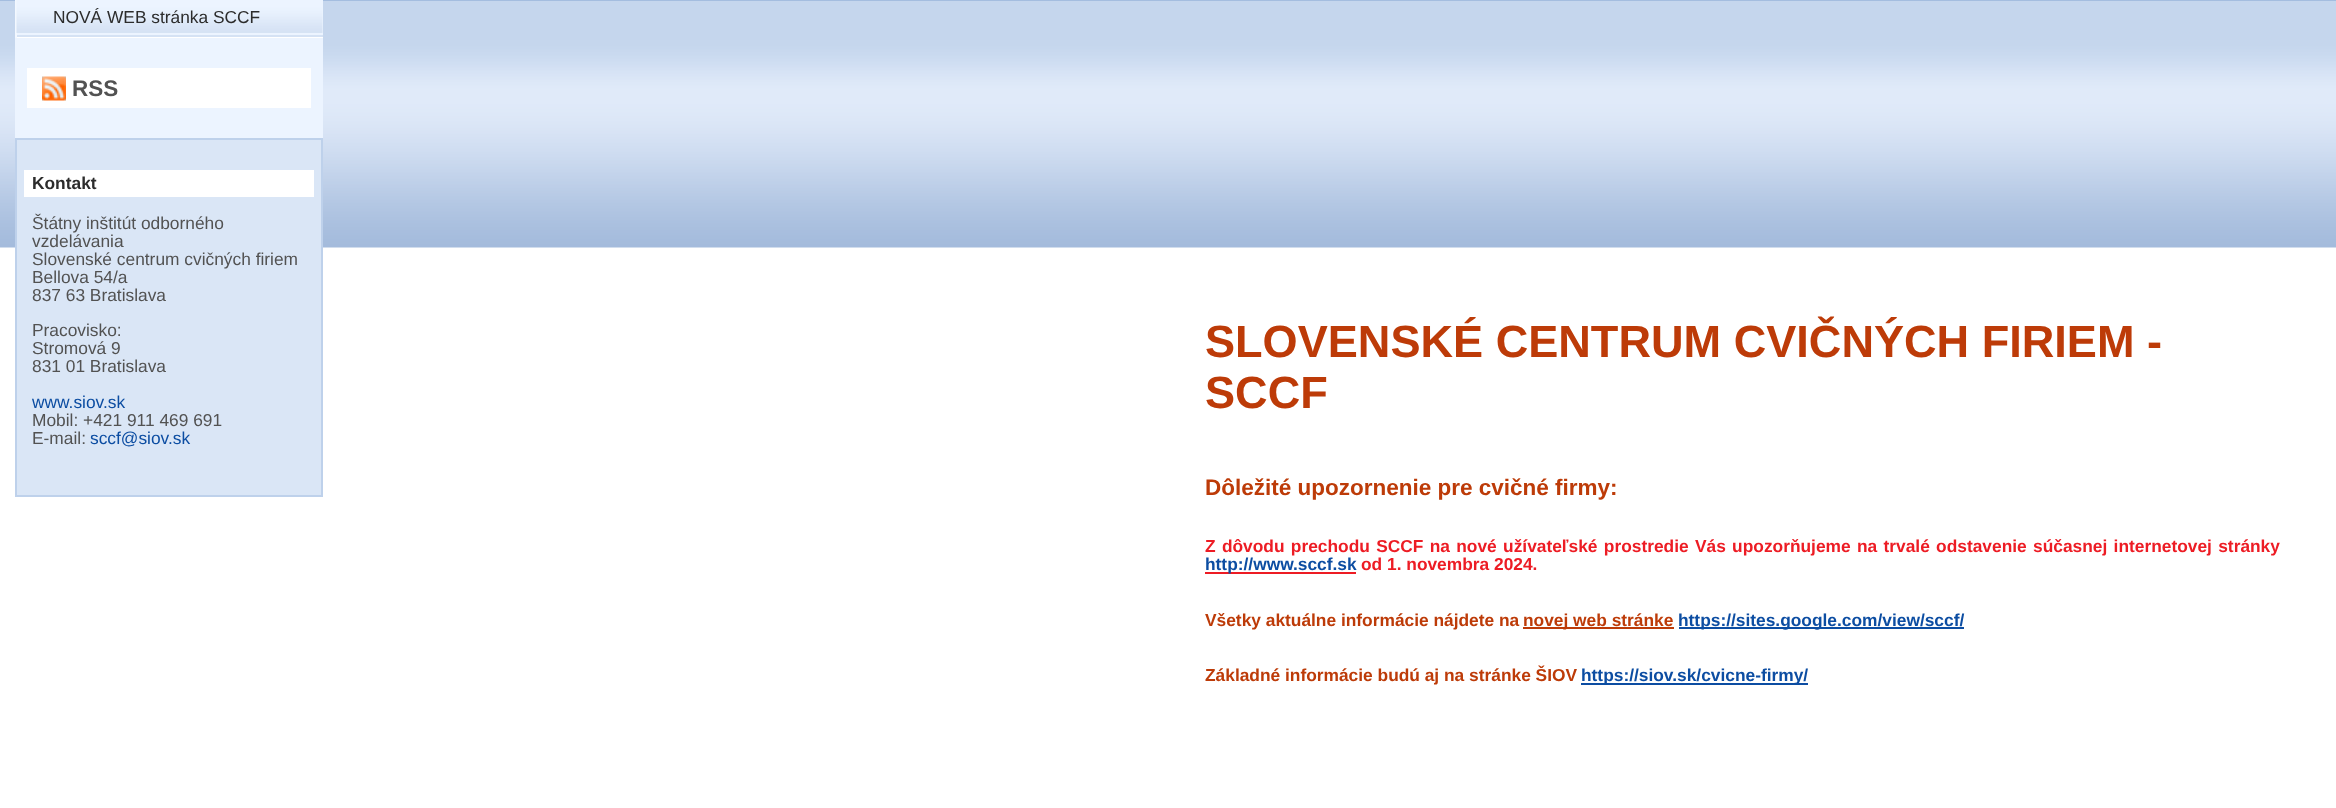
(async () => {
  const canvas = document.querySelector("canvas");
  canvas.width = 2336;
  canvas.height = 808;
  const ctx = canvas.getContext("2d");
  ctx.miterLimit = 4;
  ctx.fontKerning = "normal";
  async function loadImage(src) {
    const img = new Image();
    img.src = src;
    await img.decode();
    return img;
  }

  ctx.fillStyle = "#ffffff";
  ctx.fillRect(0, 0, 2336, 808);
  ctx.drawImage(await loadImage("img/1.png"), 0, 0, 2336, 248);
  for (const [x, y, w, h, color] of [
    [15, 38, 308, 100, "#ecf4ff"],
    [15, 0, 2, 38, "#f3f8ff"],
    [17, 37, 306, 1, "#ffffff"],
    [17, 35, 306, 2, "#d5e2f4"],
    [17, 0, 306, 35, "#ecf4ff"],
  ]) {
    ctx.fillStyle = color;
    ctx.fillRect(x, y, w, h);
  }
  ctx.drawImage(await loadImage("img/2.png"), 16, 0, 307, 33);
  ctx.fillStyle = "#ffffff";
  ctx.fillRect(27, 68, 284, 40);
  ctx.drawImage(await loadImage("img/3.png"), 42, 76, 24, 25);
  ctx.fillStyle = "#dae6f6";
  ctx.beginPath();
  ctx.rect(16, 139, 306, 357);
  ctx.fill();
  ctx.strokeStyle = "#bed1eb";
  ctx.lineWidth = 2;
  ctx.stroke();
  for (const [x, y, w, h, color] of [
    [24, 170, 290, 27, "#ffffff"],
    [1205, 572, 151, 2, "#ed1c24"],
    [1523, 627, 151, 2, "#bd3b08"],
    [1679, 627, 285, 2, "#0c4da2"],
    [1581, 683, 227, 2, "#0c4da2"],
  ]) {
    ctx.fillStyle = color;
    ctx.fillRect(x, y, w, h);
  }
  ctx.font = "17.35px Liberation Sans";
  ctx.fillStyle = "#2c2c2c";
  ctx.fillText("NOVÁ WEB stránka SCCF", 53, 23);
  ctx.font = "bold 22.5px Liberation Sans";
  ctx.fillStyle = "#525252";
  ctx.fillText("RSS", 72, 96);
  ctx.font = "bold 17.35px Liberation Sans";
  ctx.fillStyle = "#2c2c2c";
  ctx.fillText("Kontakt", 32, 189);
  ctx.font = "17.35px Liberation Sans";
  ctx.fillStyle = "#525252";
  for (const [text, x, y] of [
    ["Štátny inštitút odborného", 32, 229],
    ["vzdelávania", 32, 247],
    ["Slovenské centrum cvičných firiem", 32, 265],
    ["Bellova 54/a", 32, 283],
    ["837 63 Bratislava", 32, 301],
    ["Pracovisko:", 32, 336],
    ["Stromová 9", 32, 354],
    ["831 01 Bratislava", 32, 372],
  ]) {
    ctx.fillText(text, x, y);
  }
  ctx.fillStyle = "#0c4da2";
  ctx.fillText("www.siov.sk", 32, 408);
  ctx.fillStyle = "#525252";
  ctx.fillText("Mobil: +421 911 469 691", 32, 426);
  ctx.fillText("E-mail:", 32, 444);
  ctx.fillStyle = "#0c4da2";
  ctx.fillText("sccf@siov.sk", 90, 444);
  ctx.font = "bold 45.1px Liberation Sans";
  ctx.fillStyle = "#bd3b08";
  ctx.fillText("SLOVENSKÉ CENTRUM CVIČNÝCH FIRIEM -", 1205, 357);
  ctx.fillText("SCCF", 1205, 408);
  ctx.font = "bold 22.5px Liberation Sans";
  ctx.fillText("Dôležité upozornenie pre cvičné firmy:", 1205, 495);
  ctx.wordSpacing = "1.5px";
  ctx.font = "bold 17.35px Liberation Sans";
  ctx.fillStyle = "#ed1c24";
  ctx.fillText("Z dôvodu prechodu SCCF na nové užívateľské prostredie Vás upozorňujeme na trvalé odstavenie súčasnej internetovej stránky", 1205, 552);
  ctx.wordSpacing = "0px";
  ctx.fillStyle = "#0c4da2";
  ctx.fillText("http://www.sccf.sk", 1205, 570);
  ctx.fillStyle = "#ed1c24";
  ctx.fillText("od 1. novembra 2024.", 1361, 570);
  ctx.fillStyle = "#bd3b08";
  ctx.fillText("Všetky aktuálne informácie nájdete na", 1205, 626);
  ctx.fillText("novej web stránke", 1523, 626);
  ctx.fillStyle = "#0c4da2";
  ctx.fillText("https://sites.google.com/view/sccf/", 1678, 626);
  ctx.fillStyle = "#bd3b08";
  ctx.fillText("Základné informácie budú aj na stránke ŠIOV", 1205, 681);
  ctx.fillStyle = "#0c4da2";
  ctx.fillText("https://siov.sk/cvicne-firmy/", 1581, 681);
})();
